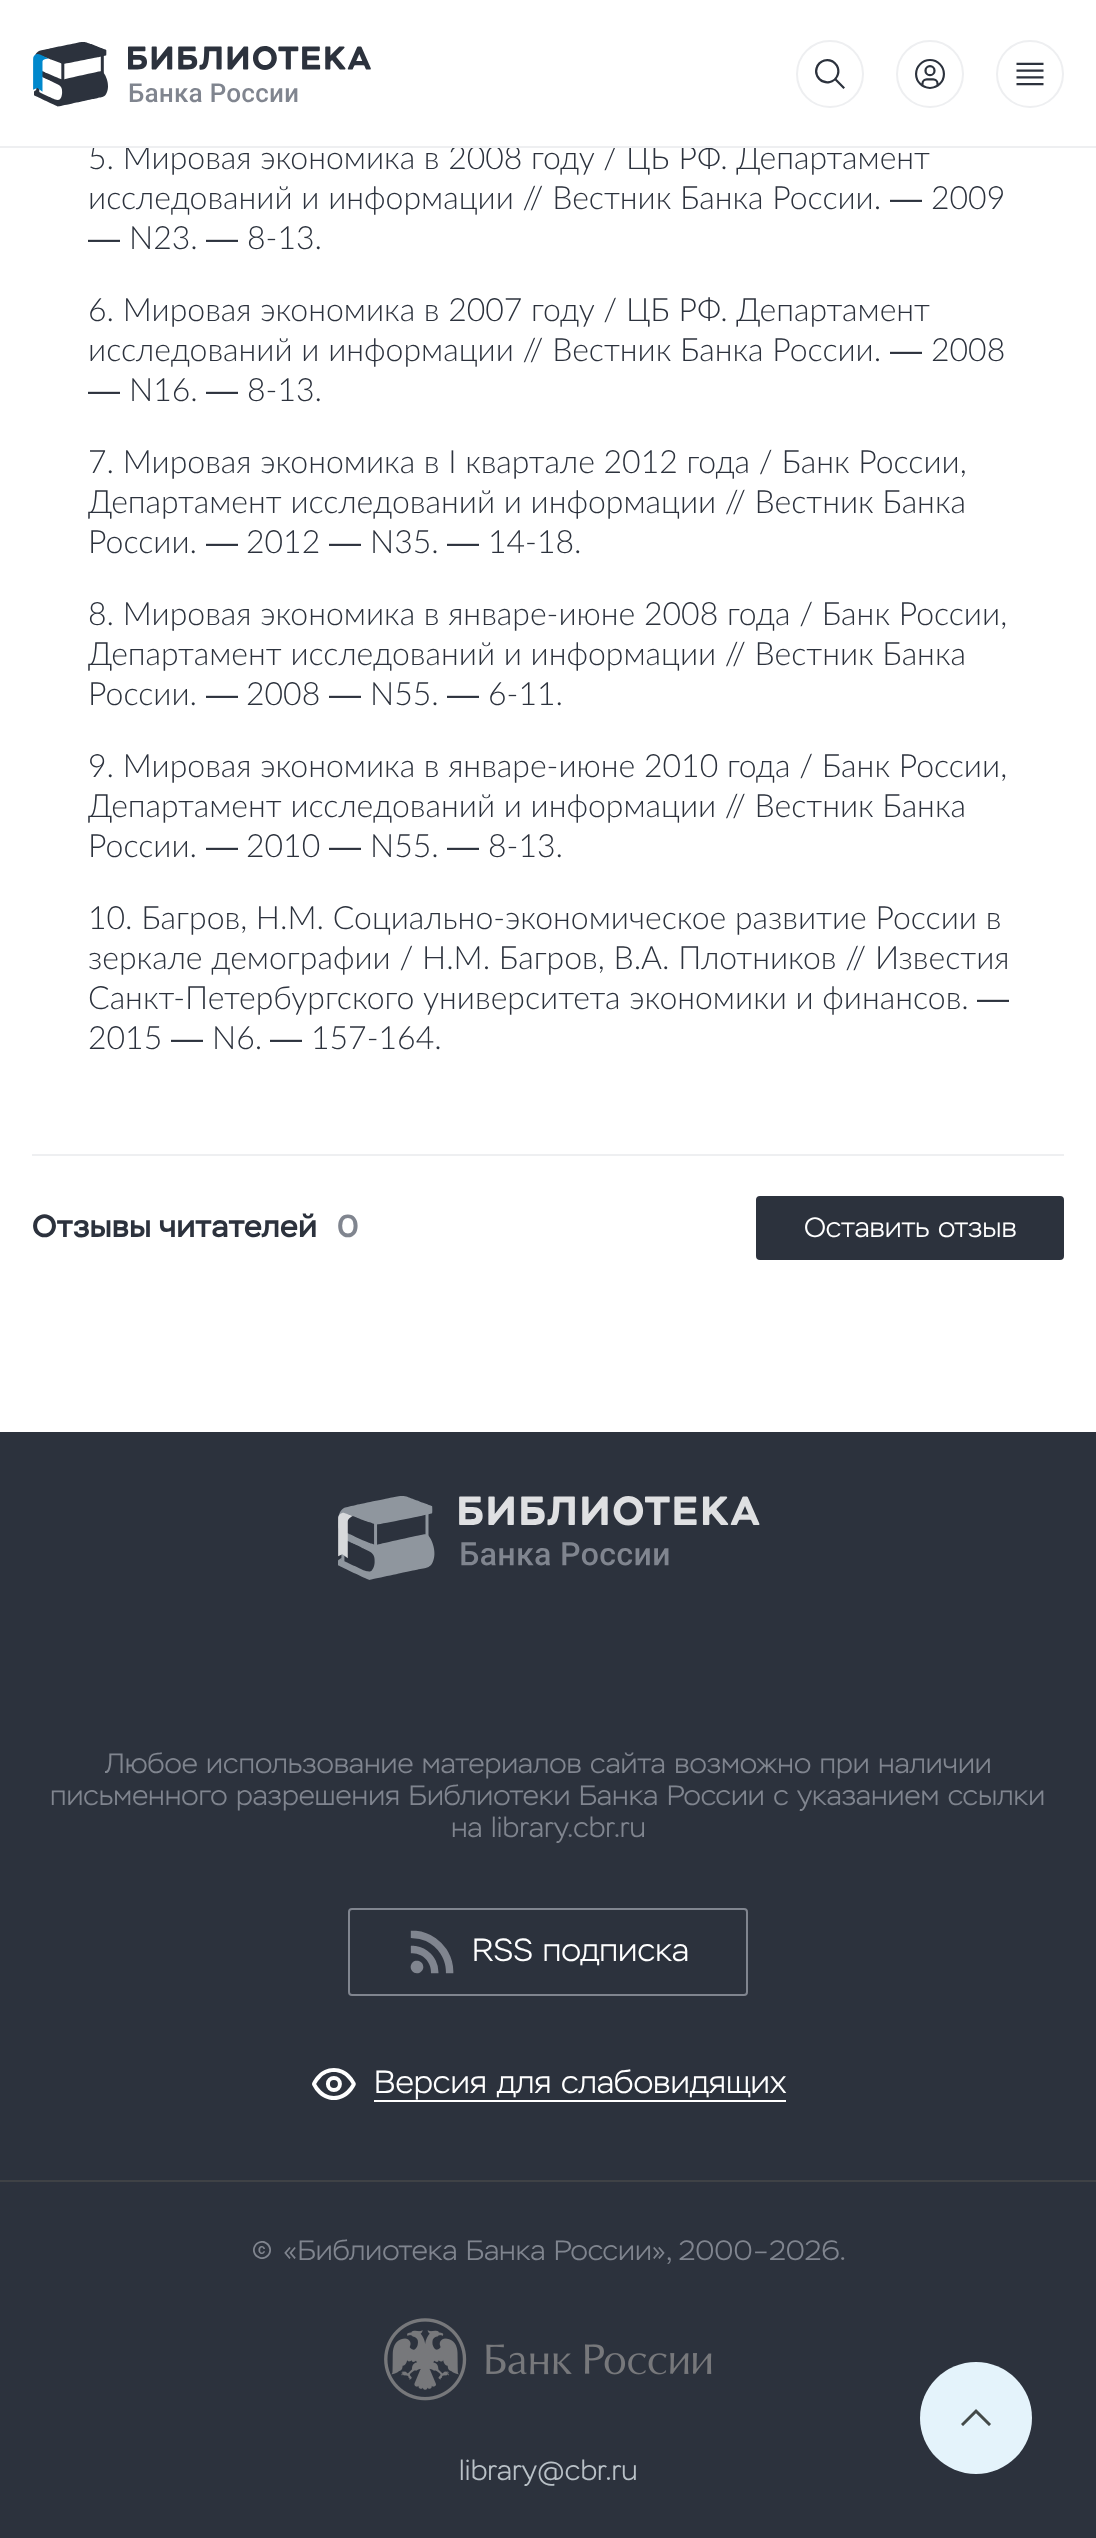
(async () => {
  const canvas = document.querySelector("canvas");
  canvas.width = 1096;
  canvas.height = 2538;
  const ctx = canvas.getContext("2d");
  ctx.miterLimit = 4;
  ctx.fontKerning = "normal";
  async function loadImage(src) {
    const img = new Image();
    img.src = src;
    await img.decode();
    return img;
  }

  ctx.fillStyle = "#ffffff";
  ctx.fillRect(0, 0, 1096, 2538);
  ctx.drawImage(await loadImage("img/1.png"), 33, 42, 338, 65);
  ctx.beginPath();
  ctx.arc(830, 74, 33, 0, Math.PI * 2);
  ctx.strokeStyle = "#eeeff1";
  ctx.lineWidth = 2;
  ctx.stroke();
  ctx.drawImage(await loadImage("img/2.png"), 815, 59, 30, 30);
  ctx.beginPath();
  ctx.arc(930, 74, 33, 0, Math.PI * 2);
  ctx.stroke();
  ctx.drawImage(await loadImage("img/3.png"), 915, 59, 30, 30);
  ctx.beginPath();
  ctx.arc(1030, 74, 33, 0, Math.PI * 2);
  ctx.stroke();
  ctx.drawImage(await loadImage("img/4.png"), 1016, 62, 28, 24);
  ctx.fillStyle = "#eeeff1";
  ctx.fillRect(32, 1154, 1032, 2);
  ctx.fillStyle = "#2c323d";
  ctx.beginPath();
  ctx.roundRect(757, 1197, 306, 62, 3);
  ctx.fill();
  ctx.strokeStyle = "#2c323d";
  ctx.stroke();
  ctx.fillRect(0, 1432, 1096, 1106);
  ctx.fillStyle = "#e4f3fb";
  ctx.beginPath();
  ctx.arc(976, 2418, 56, 0, Math.PI * 2);
  ctx.fill();
  ctx.drawImage(await loadImage("img/5.png"), 961, 2409, 30, 17);
  ctx.drawImage(await loadImage("img/6.png"), 338, 1496, 422, 84);
  ctx.beginPath();
  ctx.roundRect(349, 1909, 398, 86, 3);
  ctx.strokeStyle = "#80858f";
  ctx.stroke();
  ctx.drawImage(await loadImage("img/7.png"), 410, 1930, 44, 44);
  ctx.drawImage(await loadImage("img/8.png"), 312, 2068, 44, 32);
  ctx.fillStyle = "#ffffff";
  ctx.fillRect(374, 2100, 412, 2);
  ctx.fillStyle = "#3f4246";
  ctx.fillRect(0, 2180, 1096, 2);
  ctx.drawImage(await loadImage("img/9.png"), 253, 2241, 18, 18);
  ctx.drawImage(await loadImage("img/10.png"), 384, 2318, 328, 83);
  ctx.font = "300 32px Lato";
  ctx.fillStyle = "#2c323d";
  ctx.fillText("5. Мировая экономика в 2008 году / ЦБ РФ. Департамент", 88, 169);
  ctx.fillStyle = "#eeeff1";
  ctx.fillRect(0, 146, 1096, 2);
  ctx.fillStyle = "#ffffff";
  ctx.fillRect(614, 145, 96, 1);
  ctx.fillStyle = "#2c323d";
  ctx.fillText("исследований и информации // Вестник Банка России.", 88, 209);
  ctx.font = "32px Liberation Sans";
  ctx.fillText("—", 890, 209);
  ctx.font = "300 32px Lato";
  ctx.fillText("2009", 931, 209);
  ctx.font = "32px Liberation Sans";
  ctx.fillText("—", 88, 249);
  ctx.font = "300 32px Lato";
  ctx.fillText("N23.", 129, 249);
  ctx.font = "32px Liberation Sans";
  ctx.fillText("—", 206, 249);
  ctx.font = "300 32px Lato";
  for (const [text, x, y] of [
    ["8-13.", 247, 249],
    ["6. Мировая экономика в 2007 году / ЦБ РФ. Департамент", 88, 321],
    ["исследований и информации // Вестник Банка России.", 88, 361],
  ]) {
    ctx.fillText(text, x, y);
  }
  ctx.font = "32px Liberation Sans";
  ctx.fillText("—", 890, 361);
  ctx.font = "300 32px Lato";
  ctx.fillText("2008", 931, 361);
  ctx.font = "32px Liberation Sans";
  ctx.fillText("—", 88, 401);
  ctx.font = "300 32px Lato";
  ctx.fillText("N16.", 129, 401);
  ctx.font = "32px Liberation Sans";
  ctx.fillText("—", 206, 401);
  ctx.font = "300 32px Lato";
  for (const [text, x, y] of [
    ["8-13.", 247, 401],
    ["7. Мировая экономика в I квартале 2012 года / Банк России,", 88, 473],
    ["Департамент исследований и информации // Вестник Банка", 88, 513],
    ["России.", 88, 553],
  ]) {
    ctx.fillText(text, x, y);
  }
  ctx.font = "32px Liberation Sans";
  ctx.fillText("—", 206, 553);
  ctx.font = "300 32px Lato";
  ctx.fillText("2012", 246, 553);
  ctx.font = "32px Liberation Sans";
  ctx.fillText("—", 329, 553);
  ctx.font = "300 32px Lato";
  ctx.fillText("N35.", 370, 553);
  ctx.font = "32px Liberation Sans";
  ctx.fillText("—", 447, 553);
  ctx.font = "300 32px Lato";
  for (const [text, x, y] of [
    ["14-18.", 488, 553],
    ["8. Мировая экономика в январе-июне 2008 года / Банк России,", 88, 625],
    ["Департамент исследований и информации // Вестник Банка", 88, 665],
    ["России.", 88, 705],
  ]) {
    ctx.fillText(text, x, y);
  }
  ctx.font = "32px Liberation Sans";
  ctx.fillText("—", 206, 705);
  ctx.font = "300 32px Lato";
  ctx.fillText("2008", 246, 705);
  ctx.font = "32px Liberation Sans";
  ctx.fillText("—", 329, 705);
  ctx.font = "300 32px Lato";
  ctx.fillText("N55.", 370, 705);
  ctx.font = "32px Liberation Sans";
  ctx.fillText("—", 447, 705);
  ctx.font = "300 32px Lato";
  for (const [text, x, y] of [
    ["6-11.", 488, 705],
    ["9. Мировая экономика в январе-июне 2010 года / Банк России,", 88, 777],
    ["Департамент исследований и информации // Вестник Банка", 88, 817],
    ["России.", 88, 857],
  ]) {
    ctx.fillText(text, x, y);
  }
  ctx.font = "32px Liberation Sans";
  ctx.fillText("—", 206, 857);
  ctx.font = "300 32px Lato";
  ctx.fillText("2010", 246, 857);
  ctx.font = "32px Liberation Sans";
  ctx.fillText("—", 329, 857);
  ctx.font = "300 32px Lato";
  ctx.fillText("N55.", 370, 857);
  ctx.font = "32px Liberation Sans";
  ctx.fillText("—", 447, 857);
  ctx.font = "300 32px Lato";
  for (const [text, x, y] of [
    ["8-13.", 488, 857],
    ["10. Багров, Н.М. Социально-экономическое развитие России в", 88, 929],
    ["зеркале демографии / Н.М. Багров, В.А. Плотников // Известия", 88, 969],
    ["Санкт-Петербургского университета экономики и финансов.", 88, 1009],
  ]) {
    ctx.fillText(text, x, y);
  }
  ctx.font = "32px Liberation Sans";
  ctx.fillText("—", 977, 1009);
  ctx.font = "300 32px Lato";
  ctx.fillText("2015", 88, 1049);
  ctx.font = "32px Liberation Sans";
  ctx.fillText("—", 171, 1049);
  ctx.font = "300 32px Lato";
  ctx.fillText("N6.", 212, 1049);
  ctx.font = "32px Liberation Sans";
  ctx.fillText("—", 270, 1049);
  ctx.font = "300 32px Lato";
  ctx.fillText("157-164.", 311, 1049);
  ctx.font = "500 32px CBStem";
  ctx.fillText("Отзывы читателей", 32, 1237);
  ctx.fillStyle = "#80858f";
  ctx.fillText("0", 337, 1237);
  ctx.font = "300 28px CBStem";
  ctx.fillStyle = "#ffffff";
  ctx.fillText("Оставить отзыв", 804, 1237);
  ctx.fillStyle = "#80858f";
  for (const [text, x, y] of [
    ["Любое использование материалов сайта возможно при наличии", 105, 1773],
    ["письменного разрешения Библиотеки Банка России с указанием ссылки", 50, 1805],
    ["на library.cbr.ru", 451, 1837],
  ]) {
    ctx.fillText(text, x, y);
  }
  ctx.font = "300 32px CBStem";
  ctx.fillStyle = "#ffffff";
  ctx.fillText("RSS подписка", 472, 1961);
  ctx.fillText("Версия для слабовидящих", 374, 2093);
  ctx.font = "300 28px CBStem";
  ctx.fillStyle = "#80858f";
  ctx.fillText("«Библиотека Банка России», 2000–2026.", 283, 2260);
  ctx.fillStyle = "#b9c1c7";
  ctx.fillText("library@cbr.ru", 459, 2480);
})();
